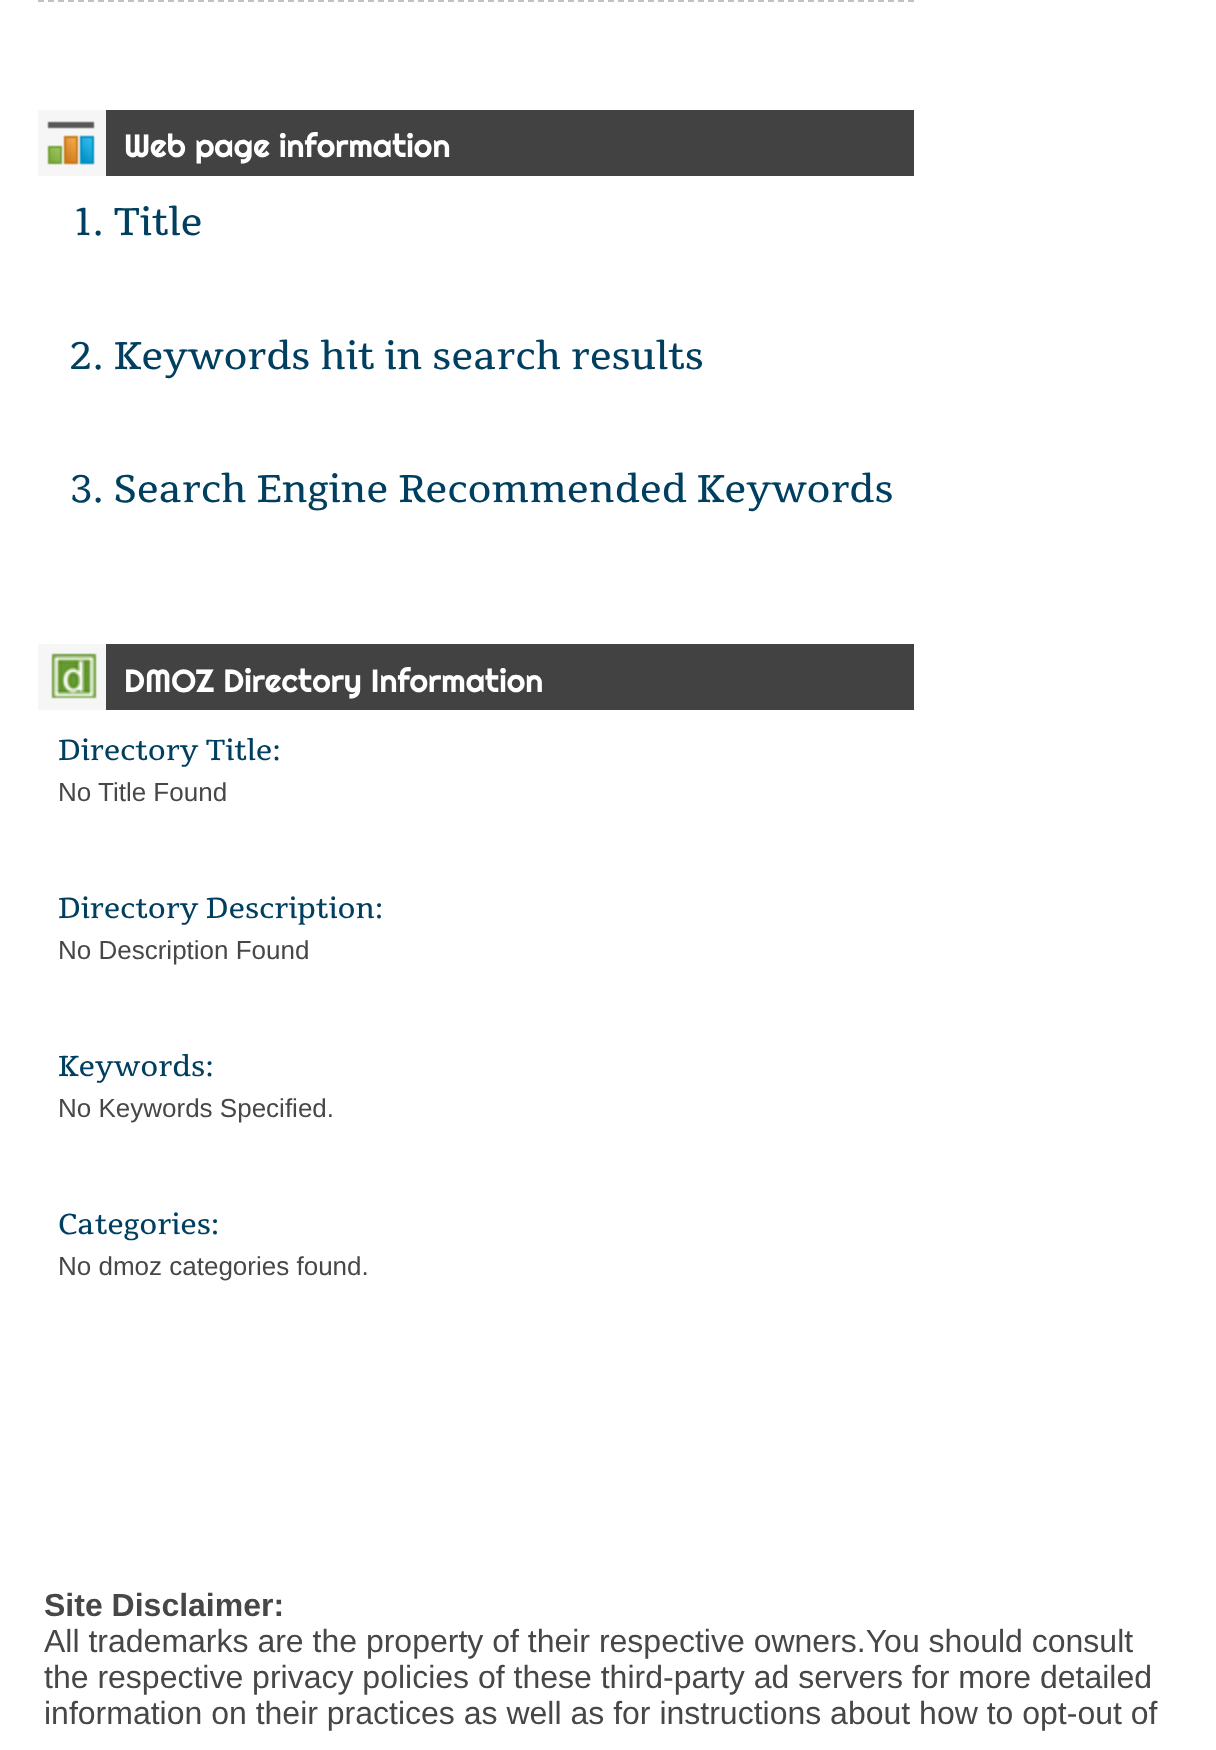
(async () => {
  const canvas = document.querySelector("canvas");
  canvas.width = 1216;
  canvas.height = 1750;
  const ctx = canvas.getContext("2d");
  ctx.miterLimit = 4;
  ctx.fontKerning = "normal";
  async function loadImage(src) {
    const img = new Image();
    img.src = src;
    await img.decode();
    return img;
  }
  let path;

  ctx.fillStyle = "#ffffff";
  ctx.fillRect(0, 0, 1216, 1750);
  path = new Path2D("M38 1H914");
  ctx.strokeStyle = "#c1c1c1";
  ctx.lineWidth = 2;
  ctx.setLineDash([6, 4]);
  ctx.stroke(path);
  ctx.fillStyle = "#424242";
  ctx.fillRect(106, 110, 808, 66);
  ctx.fillStyle = "#f6f6f6";
  ctx.fillRect(38, 110, 68, 66);
  ctx.drawImage(await loadImage("img/1.png"), 47, 121, 48, 44);
  ctx.fillStyle = "#424242";
  ctx.fillRect(106, 644, 808, 66);
  ctx.fillStyle = "#f6f6f6";
  ctx.fillRect(38, 644, 68, 66);
  ctx.drawImage(await loadImage("img/2.png"), 51, 653, 46, 46);
  ctx.font = "32px Righteous";
  ctx.fillStyle = "#ffffff";
  ctx.fillText("Web page information", 124, 157);
  ctx.font = "38.4px Tienne";
  ctx.fillStyle = "#003f60";
  for (const [text, x, y] of [
    ["1. Title", 74, 235],
    ["2. Keywords hit in search results", 69, 369],
    ["3. Search Engine Recommended Keywords", 70, 502],
  ]) {
    ctx.fillText(text, x, y);
  }
  ctx.font = "32px Righteous";
  ctx.fillStyle = "#ffffff";
  ctx.fillText("DMOZ Directory Information", 124, 692);
  ctx.font = "28.75px Tienne";
  ctx.fillStyle = "#003f60";
  ctx.fillText("Directory Title:", 58, 760);
  ctx.font = "26px Liberation Sans";
  ctx.fillStyle = "#474747";
  ctx.fillText("No Title Found", 58, 801);
  ctx.font = "28.75px Tienne";
  ctx.fillStyle = "#003f60";
  ctx.fillText("Directory Description:", 58, 918);
  ctx.font = "26px Liberation Sans";
  ctx.fillStyle = "#474747";
  ctx.fillText("No Description Found", 58, 959);
  ctx.font = "28.75px Tienne";
  ctx.fillStyle = "#003f60";
  ctx.fillText("Keywords:", 58, 1076);
  ctx.font = "26px Liberation Sans";
  ctx.fillStyle = "#474747";
  ctx.fillText("No Keywords Specified.", 58, 1117);
  ctx.font = "28.75px Tienne";
  ctx.fillStyle = "#003f60";
  ctx.fillText("Categories:", 58, 1234);
  ctx.font = "26px Liberation Sans";
  ctx.fillStyle = "#474747";
  ctx.fillText("No dmoz categories found.", 58, 1275);
  ctx.font = "bold 32px Liberation Sans";
  ctx.fillText("Site Disclaimer:", 44, 1616);
  ctx.font = "32px Liberation Sans";
  for (const [text, x, y] of [
    ["All trademarks are the property of their respective owners.You should consult", 44, 1652],
    ["the respective privacy policies of these third-party ad servers for more detailed", 44, 1688],
    ["information on their practices as well as for instructions about how to opt-out of", 44, 1724],
  ]) {
    ctx.fillText(text, x, y);
  }
})();
